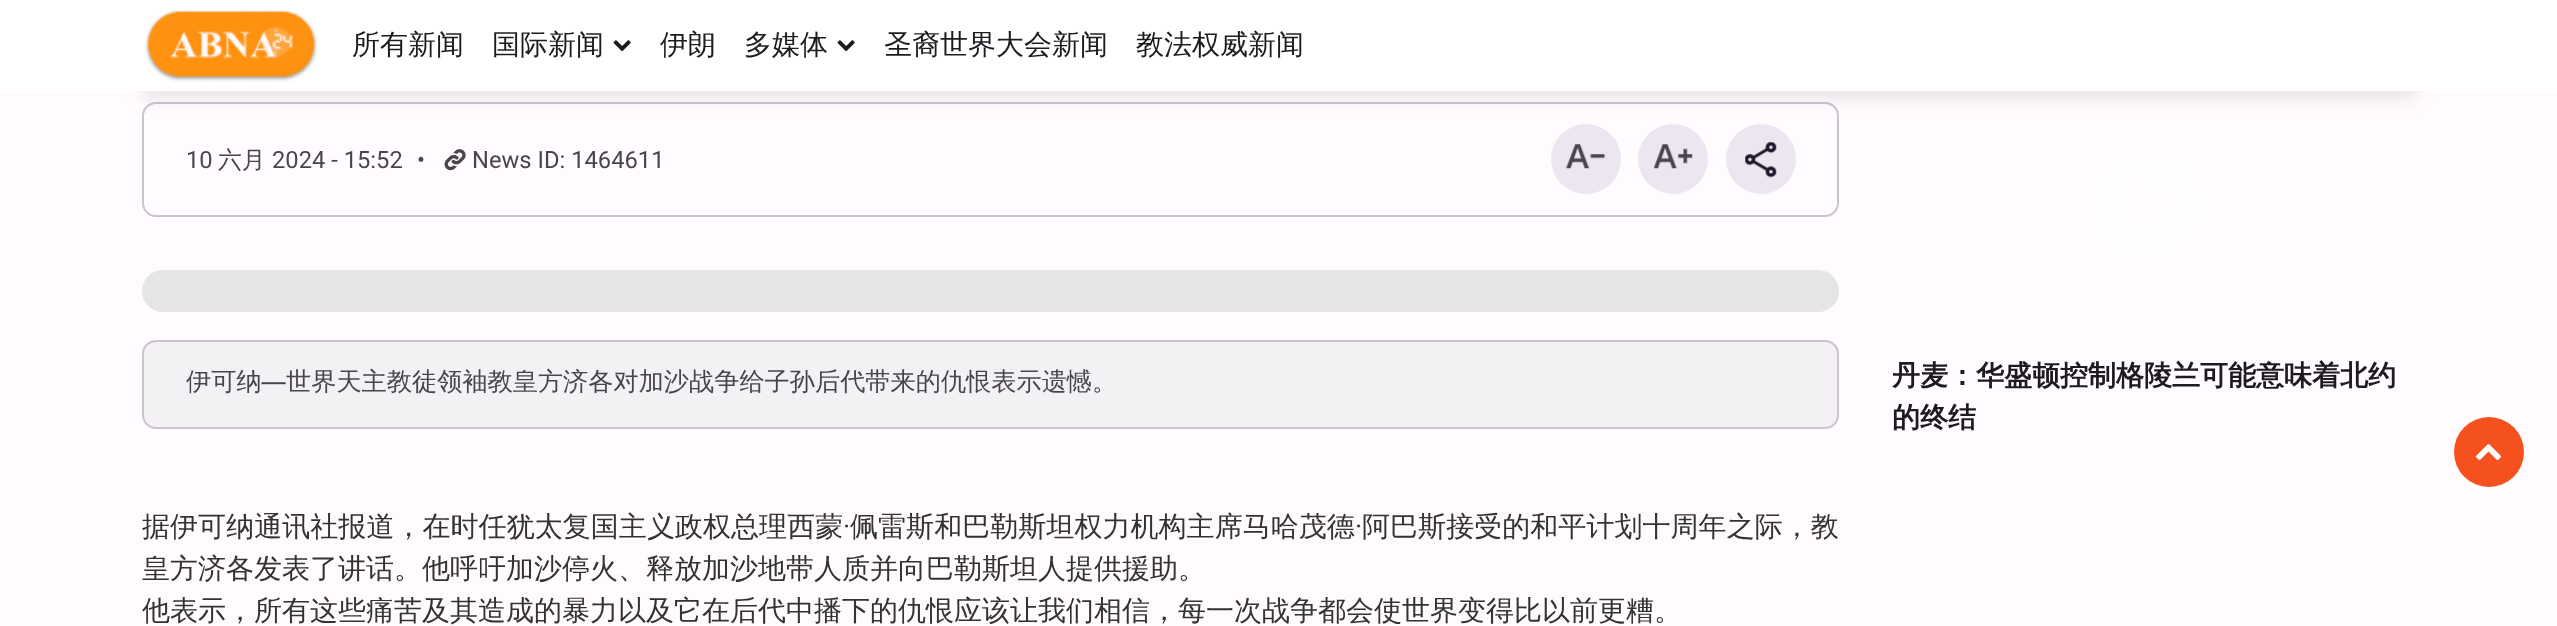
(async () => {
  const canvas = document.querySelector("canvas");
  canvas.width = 2557;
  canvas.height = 626;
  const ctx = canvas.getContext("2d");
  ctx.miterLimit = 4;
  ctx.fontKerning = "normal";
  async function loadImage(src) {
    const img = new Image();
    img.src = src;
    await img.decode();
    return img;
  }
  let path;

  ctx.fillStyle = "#fffbfe";
  ctx.fillRect(0, 0, 2557, 626);
  ctx.beginPath();
  ctx.roundRect(143, 103, 1695, 113, 13);
  ctx.strokeStyle = "#cac4d0";
  ctx.lineWidth = 2;
  ctx.stroke();
  ctx.fillStyle = "#ece6f0";
  ctx.beginPath();
  ctx.arc(1586, 159, 35, 0, Math.PI * 2);
  ctx.fill();
  ctx.beginPath();
  ctx.arc(1673, 159, 35, 0, Math.PI * 2);
  ctx.fill();
  ctx.beginPath();
  ctx.arc(1761, 159, 35, 0, Math.PI * 2);
  ctx.fill();
  ctx.fillStyle = "rgba(0, 0, 0, 0.1)";
  ctx.filter = "blur(9px)";
  ctx.beginPath();
  ctx.rect(142, 7, 2275, 91);
  ctx.fill();
  ctx.filter = "none";
  ctx.fillStyle = "#ffffff";
  ctx.fillRect(0, 0, 2557, 91);
  ctx.drawImage(await loadImage("img/1.png"), 145, 10, 173, 72);
  ctx.drawImage(await loadImage("img/2.png"), 613, 40, 18, 12);
  ctx.drawImage(await loadImage("img/2.png"), 837, 40, 18, 12);
  ctx.drawImage(await loadImage("img/3.png"), 444, 149, 22, 22);
  ctx.drawImage(await loadImage("img/4.png"), 1566, 144, 40, 25);
  ctx.drawImage(await loadImage("img/5.png"), 1654, 144, 39, 25);
  ctx.drawImage(await loadImage("img/6.png"), 1745, 142, 32, 36);
  ctx.fillStyle = "#e5e5e5";
  ctx.beginPath();
  ctx.roundRect(142, 270, 1697, 42, 21);
  ctx.fill();
  ctx.fillStyle = "#f3f1f4";
  ctx.beginPath();
  ctx.roundRect(143, 341, 1695, 87, 13);
  ctx.fill();
  ctx.stroke();
  ctx.fillStyle = "#fffeff";
  path = new Path2D("M2090 204C2090 185 2099 168 2115 157C2127 149 2142 146 2157 149C2167 151 2177 157 2185 164C2196 175 2202 189 2202 204C2201 238 2173 263 2140 260C2111 257 2090 232 2090 204ZM2132 232L2174 204L2132 176Z");
  ctx.fill(path);
  ctx.fillStyle = "#f4511e";
  ctx.beginPath();
  ctx.arc(2489, 452, 35, 0, Math.PI * 2);
  ctx.fill();
  ctx.drawImage(await loadImage("img/7.png"), 2475, 444, 27, 17);
  ctx.font = "500 28px WenQuanYi Zen Hei";
  ctx.fillStyle = "#1d1b20";
  for (const [text, x, y] of [
    ["所有新闻", 352, 54],
    ["国际新闻", 492, 54],
    ["伊朗", 660, 54],
    ["多媒体", 744, 54],
    ["圣裔世界大会新闻", 884, 54],
    ["教法权威新闻", 1136, 54],
  ]) {
    ctx.fillText(text, x, y);
  }
  ctx.font = "23.75px Roboto";
  ctx.fillStyle = "#49454f";
  ctx.fillText("10", 186, 168);
  ctx.font = "500 23.75px WenQuanYi Zen Hei";
  ctx.fillText("六月", 218, 168);
  ctx.font = "23.75px Roboto";
  for (const [text, x, y] of [
    ["2024 - 15:52", 272, 168],
    ["•", 417, 168],
    ["News ID: 1464611", 472, 168],
  ]) {
    ctx.fillText(text, x, y);
  }
  ctx.font = "500 25.2px WenQuanYi Zen Hei";
  ctx.fillText("伊可纳", 186, 390);
  ctx.font = "500 25.2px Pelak";
  ctx.fillText("—", 261, 390);
  ctx.font = "500 25.2px WenQuanYi Zen Hei";
  ctx.fillText("世界天主教徒领袖教皇方济各对加沙战争给子孙后代带来的仇恨表示遗憾。", 286, 390);
  ctx.letterSpacing = "0.05px";
  ctx.font = "500 28px WenQuanYi Zen Hei";
  ctx.fillStyle = "#333333";
  ctx.fillText("据伊可纳通讯社报道，在时任犹太复国主义政权总理西蒙", 142, 536);
  ctx.font = "28px Roboto";
  ctx.fillText("·", 843, 536);
  ctx.font = "500 28px WenQuanYi Zen Hei";
  ctx.fillText("佩雷斯和巴勒斯坦权力机构主席马哈茂德", 850, 536);
  ctx.font = "28px Roboto";
  ctx.fillText("·", 1355, 536);
  ctx.font = "500 28px WenQuanYi Zen Hei";
  ctx.fillText("阿巴斯接受的和平计划十周年之际，教", 1362, 536);
  ctx.letterSpacing = "0px";
  ctx.fillText("皇方济各发表了讲话。他呼吁加沙停火、释放加沙地带人质并向巴勒斯坦人提供援助。", 142, 578);
  ctx.fillText("他表示，所有这些痛苦及其造成的暴力以及它在后代中播下的仇恨应该让我们相信，每一次战争都会使世界变得比以前更糟。", 142, 620);
  ctx.font = "bold 28px WenQuanYi Zen Hei";
  ctx.fillStyle = "#1d1b20";
  ctx.fillText("丹麦：华盛顿控制格陵兰可能意味着北约", 1892, 385);
  ctx.fillText("的终结", 1892, 427);
})();
